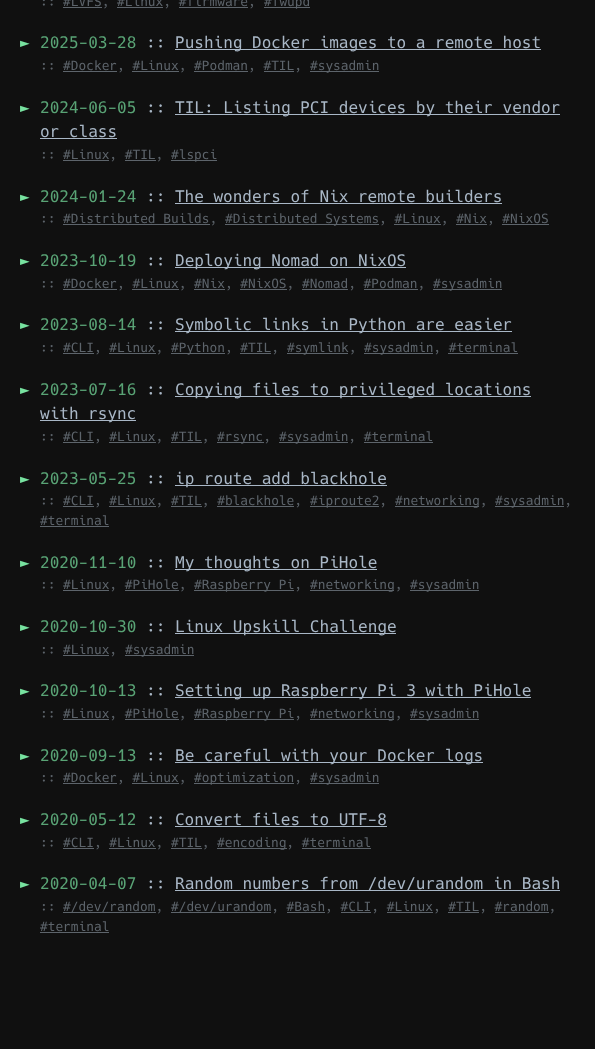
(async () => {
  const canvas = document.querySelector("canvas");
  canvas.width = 595;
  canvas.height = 1049;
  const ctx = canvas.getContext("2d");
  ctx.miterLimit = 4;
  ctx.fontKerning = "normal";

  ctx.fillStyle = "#101010";
  ctx.fillRect(0, 0, 595, 1049);
  for (const [x, y, w, h, color] of [
    [264, 7, 46, 1, "#5d646b"],
    [63, 7, 39, 1, "#5d646b"],
    [117, 7, 46, 1, "#5d646b"],
    [179, 7, 69, 1, "#5d646b"],
    [175, 49, 366, 1, "#a9b7c6"],
    [310, 71, 69, 1, "#5d646b"],
    [63, 71, 54, 1, "#5d646b"],
    [132, 71, 47, 1, "#5d646b"],
    [194, 71, 54, 1, "#5d646b"],
    [264, 71, 30, 1, "#5d646b"],
    [175, 114, 385, 1, "#a9b7c6"],
    [40, 138, 77, 1, "#a9b7c6"],
    [171, 160, 46, 1, "#5d646b"],
    [63, 160, 46, 1, "#5d646b"],
    [125, 160, 31, 1, "#5d646b"],
    [175, 203, 327, 1, "#a9b7c6"],
    [225, 224, 154, 1, "#5d646b"],
    [63, 224, 147, 1, "#5d646b"],
    [394, 224, 47, 1, "#5d646b"],
    [456, 224, 31, 1, "#5d646b"],
    [502, 224, 47, 1, "#5d646b"],
    [175, 267, 231, 1, "#a9b7c6"],
    [433, 289, 69, 1, "#5d646b"],
    [63, 289, 54, 1, "#5d646b"],
    [132, 289, 47, 1, "#5d646b"],
    [194, 289, 31, 1, "#5d646b"],
    [240, 289, 47, 1, "#5d646b"],
    [302, 289, 46, 1, "#5d646b"],
    [364, 289, 54, 1, "#5d646b"],
    [175, 331, 337, 1, "#a9b7c6"],
    [171, 353, 54, 1, "#5d646b"],
    [287, 353, 61, 1, "#5d646b"],
    [364, 353, 69, 1, "#5d646b"],
    [63, 353, 31, 1, "#5d646b"],
    [109, 353, 47, 1, "#5d646b"],
    [240, 353, 31, 1, "#5d646b"],
    [448, 353, 70, 1, "#5d646b"],
    [175, 396, 356, 1, "#a9b7c6"],
    [40, 420, 96, 1, "#a9b7c6"],
    [217, 442, 47, 1, "#5d646b"],
    [279, 442, 69, 1, "#5d646b"],
    [63, 442, 31, 1, "#5d646b"],
    [109, 442, 47, 1, "#5d646b"],
    [171, 442, 31, 1, "#5d646b"],
    [364, 442, 69, 1, "#5d646b"],
    [175, 485, 212, 1, "#a9b7c6"],
    [310, 506, 69, 1, "#5d646b"],
    [395, 506, 84, 1, "#5d646b"],
    [495, 506, 69, 1, "#5d646b"],
    [63, 506, 31, 1, "#5d646b"],
    [109, 506, 47, 1, "#5d646b"],
    [171, 506, 31, 1, "#5d646b"],
    [217, 506, 77, 1, "#5d646b"],
    [40, 526, 69, 1, "#5d646b"],
    [175, 569, 202, 1, "#a9b7c6"],
    [194, 590, 100, 1, "#5d646b"],
    [310, 590, 84, 1, "#5d646b"],
    [410, 590, 69, 1, "#5d646b"],
    [63, 590, 46, 1, "#5d646b"],
    [125, 590, 54, 1, "#5d646b"],
    [175, 633, 221, 1, "#a9b7c6"],
    [125, 655, 69, 1, "#5d646b"],
    [63, 655, 46, 1, "#5d646b"],
    [175, 697, 356, 1, "#a9b7c6"],
    [194, 719, 100, 1, "#5d646b"],
    [310, 719, 84, 1, "#5d646b"],
    [410, 719, 69, 1, "#5d646b"],
    [63, 719, 46, 1, "#5d646b"],
    [125, 719, 54, 1, "#5d646b"],
    [175, 762, 308, 1, "#a9b7c6"],
    [194, 783, 100, 1, "#5d646b"],
    [310, 783, 69, 1, "#5d646b"],
    [63, 783, 54, 1, "#5d646b"],
    [132, 783, 47, 1, "#5d646b"],
    [175, 826, 212, 1, "#a9b7c6"],
    [217, 848, 70, 1, "#5d646b"],
    [63, 848, 31, 1, "#5d646b"],
    [109, 848, 47, 1, "#5d646b"],
    [171, 848, 31, 1, "#5d646b"],
    [302, 848, 69, 1, "#5d646b"],
    [175, 890, 385, 1, "#a9b7c6"],
    [63, 912, 93, 1, "#5d646b"],
    [171, 912, 100, 1, "#5d646b"],
    [287, 912, 38, 1, "#5d646b"],
    [341, 912, 30, 1, "#5d646b"],
    [387, 912, 46, 1, "#5d646b"],
    [448, 912, 31, 1, "#5d646b"],
    [495, 912, 54, 1, "#5d646b"],
    [40, 932, 69, 1, "#5d646b"],
  ]) {
    ctx.fillStyle = color;
    ctx.fillRect(x, y, w, h);
  }
  ctx.font = "12.8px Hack";
  ctx.fillText(":: #LVFS, #Linux, #firmware,", 40, 6);
  ctx.fillText("#fwupd", 264, 6);
  ctx.font = "16px Hack";
  ctx.fillStyle = "#78e2a0";
  ctx.fillText("►", 20, 48);
  ctx.fillStyle = "#59a375";
  ctx.fillText("2025-03-28", 40, 48);
  ctx.fillStyle = "#a9b7c6";
  ctx.fillText("::", 146, 48);
  ctx.fillText("Pushing Docker images to a remote host", 175, 48);
  ctx.font = "12.8px Hack";
  ctx.fillStyle = "#5d646b";
  ctx.fillText(":: #Docker, #Linux, #Podman, #TIL,", 40, 70);
  ctx.fillText("#sysadmin", 310, 70);
  ctx.font = "16px Hack";
  ctx.fillStyle = "#78e2a0";
  ctx.fillText("►", 20, 113);
  ctx.fillStyle = "#59a375";
  ctx.fillText("2024-06-05", 40, 113);
  ctx.fillStyle = "#a9b7c6";
  for (const [text, x, y] of [
    ["::", 146, 113],
    ["TIL: Listing PCI devices by their vendor", 175, 113],
    ["or class", 40, 137],
  ]) {
    ctx.fillText(text, x, y);
  }
  ctx.font = "12.8px Hack";
  ctx.fillStyle = "#5d646b";
  ctx.fillText(":: #Linux, #TIL,", 40, 159);
  ctx.fillText("#lspci", 171, 159);
  ctx.font = "16px Hack";
  ctx.fillStyle = "#78e2a0";
  ctx.fillText("►", 20, 202);
  ctx.fillStyle = "#59a375";
  ctx.fillText("2024-01-24", 40, 202);
  ctx.fillStyle = "#a9b7c6";
  ctx.fillText(":: The wonders of Nix remote builders", 146, 202);
  ctx.font = "12.8px Hack";
  ctx.fillStyle = "#5d646b";
  ctx.fillText(":: #Distributed Builds,", 40, 223);
  ctx.fillText("#Distributed Systems, #Linux, #Nix, #NixOS", 225, 223);
  ctx.font = "16px Hack";
  ctx.fillStyle = "#78e2a0";
  ctx.fillText("►", 20, 266);
  ctx.fillStyle = "#59a375";
  ctx.fillText("2023-10-19", 40, 266);
  ctx.fillStyle = "#a9b7c6";
  ctx.fillText("::", 146, 266);
  ctx.fillText("Deploying Nomad on NixOS", 175, 266);
  ctx.font = "12.8px Hack";
  ctx.fillStyle = "#5d646b";
  ctx.fillText(":: #Docker, #Linux, #Nix, #NixOS, #Nomad, #Podman,", 40, 288);
  ctx.fillText("#sysadmin", 433, 288);
  ctx.font = "16px Hack";
  ctx.fillStyle = "#78e2a0";
  ctx.fillText("►", 20, 330);
  ctx.fillStyle = "#59a375";
  ctx.fillText("2023-08-14", 40, 330);
  ctx.fillStyle = "#a9b7c6";
  ctx.fillText("::", 146, 330);
  ctx.fillText("Symbolic links in Python are easier", 175, 330);
  ctx.font = "12.8px Hack";
  ctx.fillStyle = "#5d646b";
  for (const [text, x, y] of [
    [":: #CLI, #Linux,", 40, 352],
    ["#Python, #TIL,", 171, 352],
    ["#symlink,", 287, 352],
    ["#sysadmin, #terminal", 364, 352],
  ]) {
    ctx.fillText(text, x, y);
  }
  ctx.font = "16px Hack";
  ctx.fillStyle = "#78e2a0";
  ctx.fillText("►", 20, 395);
  ctx.fillStyle = "#59a375";
  ctx.fillText("2023-07-16", 40, 395);
  ctx.fillStyle = "#a9b7c6";
  for (const [text, x, y] of [
    ["::", 146, 395],
    ["Copying files to privileged locations", 175, 395],
    ["with rsync", 40, 419],
  ]) {
    ctx.fillText(text, x, y);
  }
  ctx.font = "12.8px Hack";
  ctx.fillStyle = "#5d646b";
  for (const [text, x, y] of [
    [":: #CLI, #Linux, #TIL,", 40, 441],
    ["#rsync,", 217, 441],
    ["#sysadmin, #terminal", 279, 441],
  ]) {
    ctx.fillText(text, x, y);
  }
  ctx.font = "16px Hack";
  ctx.fillStyle = "#78e2a0";
  ctx.fillText("►", 20, 484);
  ctx.fillStyle = "#59a375";
  ctx.fillText("2023-05-25", 40, 484);
  ctx.fillStyle = "#a9b7c6";
  ctx.fillText("::", 146, 484);
  ctx.fillText("ip route add blackhole", 175, 484);
  ctx.font = "12.8px Hack";
  ctx.fillStyle = "#5d646b";
  for (const [text, x, y] of [
    [":: #CLI, #Linux, #TIL, #blackhole,", 40, 505],
    ["#iproute2,", 310, 505],
    ["#networking,", 395, 505],
    ["#sysadmin,", 495, 505],
    ["#terminal", 40, 525],
  ]) {
    ctx.fillText(text, x, y);
  }
  ctx.font = "16px Hack";
  ctx.fillStyle = "#78e2a0";
  ctx.fillText("►", 20, 568);
  ctx.fillStyle = "#59a375";
  ctx.fillText("2020-11-10", 40, 568);
  ctx.fillStyle = "#a9b7c6";
  ctx.fillText("::", 146, 568);
  ctx.fillText("My thoughts on PiHole", 175, 568);
  ctx.font = "12.8px Hack";
  ctx.fillStyle = "#5d646b";
  for (const [text, x, y] of [
    [":: #Linux, #PiHole,", 40, 589],
    ["#Raspberry Pi,", 194, 589],
    ["#networking,", 310, 589],
    ["#sysadmin", 410, 589],
  ]) {
    ctx.fillText(text, x, y);
  }
  ctx.font = "16px Hack";
  ctx.fillStyle = "#78e2a0";
  ctx.fillText("►", 20, 632);
  ctx.fillStyle = "#59a375";
  ctx.fillText("2020-10-30", 40, 632);
  ctx.fillStyle = "#a9b7c6";
  ctx.fillText("::", 146, 632);
  ctx.fillText("Linux Upskill Challenge", 175, 632);
  ctx.font = "12.8px Hack";
  ctx.fillStyle = "#5d646b";
  ctx.fillText(":: #Linux,", 40, 654);
  ctx.fillText("#sysadmin", 125, 654);
  ctx.font = "16px Hack";
  ctx.fillStyle = "#78e2a0";
  ctx.fillText("►", 20, 696);
  ctx.fillStyle = "#59a375";
  ctx.fillText("2020-10-13", 40, 696);
  ctx.fillStyle = "#a9b7c6";
  ctx.fillText("::", 146, 696);
  ctx.fillText("Setting up Raspberry Pi 3 with PiHole", 175, 696);
  ctx.font = "12.8px Hack";
  ctx.fillStyle = "#5d646b";
  for (const [text, x, y] of [
    [":: #Linux, #PiHole,", 40, 718],
    ["#Raspberry Pi,", 194, 718],
    ["#networking,", 310, 718],
    ["#sysadmin", 410, 718],
  ]) {
    ctx.fillText(text, x, y);
  }
  ctx.font = "16px Hack";
  ctx.fillStyle = "#78e2a0";
  ctx.fillText("►", 20, 761);
  ctx.fillStyle = "#59a375";
  ctx.fillText("2020-09-13", 40, 761);
  ctx.fillStyle = "#a9b7c6";
  ctx.fillText("::", 146, 761);
  ctx.fillText("Be careful with your Docker logs", 175, 761);
  ctx.font = "12.8px Hack";
  ctx.fillStyle = "#5d646b";
  for (const [text, x, y] of [
    [":: #Docker, #Linux,", 40, 782],
    ["#optimization,", 194, 782],
    ["#sysadmin", 310, 782],
  ]) {
    ctx.fillText(text, x, y);
  }
  ctx.font = "16px Hack";
  ctx.fillStyle = "#78e2a0";
  ctx.fillText("►", 20, 825);
  ctx.fillStyle = "#59a375";
  ctx.fillText("2020-05-12", 40, 825);
  ctx.fillStyle = "#a9b7c6";
  ctx.fillText(":: Convert files to UTF-8", 146, 825);
  ctx.font = "12.8px Hack";
  ctx.fillStyle = "#5d646b";
  ctx.fillText(":: #CLI, #Linux, #TIL,", 40, 847);
  ctx.fillText("#encoding, #terminal", 217, 847);
  ctx.font = "16px Hack";
  ctx.fillStyle = "#78e2a0";
  ctx.fillText("►", 20, 889);
  ctx.fillStyle = "#59a375";
  ctx.fillText("2020-04-07", 40, 889);
  ctx.fillStyle = "#a9b7c6";
  ctx.fillText("::", 146, 889);
  ctx.fillText("Random numbers from /dev/urandom in Bash", 175, 889);
  ctx.font = "12.8px Hack";
  ctx.fillStyle = "#5d646b";
  for (const [text, x, y] of [
    ["::", 40, 911],
    ["#/dev/random,", 63, 911],
    ["#/dev/urandom, #Bash, #CLI, #Linux, #TIL, #random,", 171, 911],
    ["#terminal", 40, 931],
  ]) {
    ctx.fillText(text, x, y);
  }
})();
